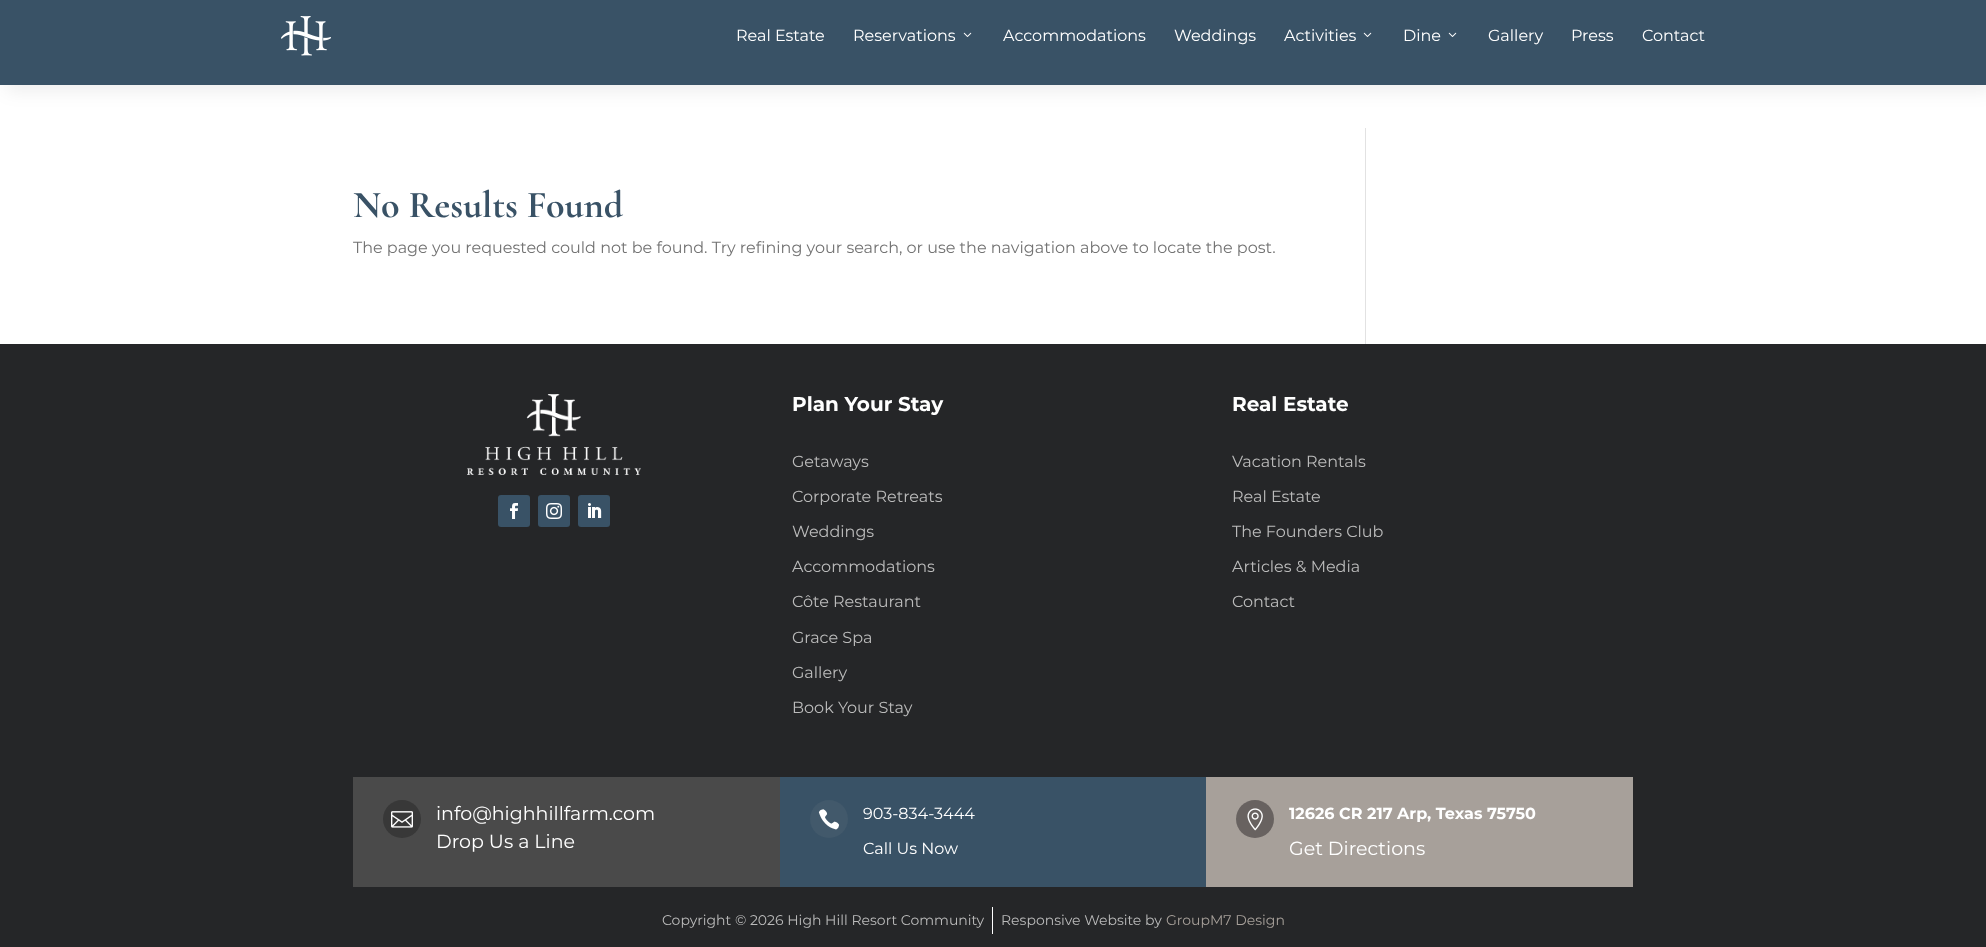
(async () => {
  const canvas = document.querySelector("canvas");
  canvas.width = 1986;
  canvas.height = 947;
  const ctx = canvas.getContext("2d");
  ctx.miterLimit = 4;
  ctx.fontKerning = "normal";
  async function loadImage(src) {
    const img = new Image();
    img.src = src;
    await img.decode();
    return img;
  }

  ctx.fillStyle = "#ffffff";
  ctx.fillRect(0, 0, 1986, 947);
  ctx.fillStyle = "rgba(0, 0, 0, 0.07)";
  ctx.filter = "blur(9px)";
  ctx.beginPath();
  ctx.rect(6, 6, 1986, 85);
  ctx.fill();
  ctx.filter = "none";
  ctx.fillStyle = "#395266";
  ctx.fillRect(0, 0, 1986, 85);
  ctx.drawImage(await loadImage("img/1.png"), 281, 16, 50, 40);
  ctx.drawImage(await loadImage("img/2.png"), 963, 32, 9, 5);
  ctx.drawImage(await loadImage("img/2.png"), 1363, 32, 9, 5);
  ctx.drawImage(await loadImage("img/2.png"), 1448, 32, 9, 5);
  ctx.fillStyle = "#e2e2e2";
  ctx.fillRect(1365, 128, 1, 216);
  ctx.fillStyle = "#252628";
  ctx.fillRect(0, 344, 1986, 603);
  ctx.drawImage(await loadImage("img/3.png"), 467, 394, 174, 81);
  ctx.fillStyle = "#395266";
  ctx.beginPath();
  ctx.roundRect(498, 495, 32, 32, 3);
  ctx.fill();
  ctx.drawImage(await loadImage("img/4.png"), 510, 503, 8, 16);
  ctx.beginPath();
  ctx.roundRect(538, 495, 32, 32, 3);
  ctx.fill();
  ctx.drawImage(await loadImage("img/5.png"), 546, 503, 16, 16);
  ctx.beginPath();
  ctx.roundRect(578, 495, 32, 32, 3);
  ctx.fill();
  ctx.drawImage(await loadImage("img/6.png"), 588, 503, 14, 15);
  ctx.fillStyle = "#4a4a4a";
  ctx.fillRect(353, 777, 427, 110);
  ctx.fillStyle = "#383838";
  ctx.beginPath();
  ctx.arc(402, 819, 19, 0, Math.PI * 2);
  ctx.fill();
  ctx.drawImage(await loadImage("img/7.png"), 391, 811, 22, 17);
  ctx.fillStyle = "#395266";
  ctx.fillRect(780, 777, 426, 110);
  ctx.fillStyle = "#42596b";
  ctx.beginPath();
  ctx.arc(829, 819, 19, 0, Math.PI * 2);
  ctx.fill();
  ctx.drawImage(await loadImage("img/8.png"), 818, 809, 22, 21);
  ctx.fillStyle = "#a7a09a";
  ctx.fillRect(1206, 777, 427, 110);
  ctx.fillStyle = "#686260";
  ctx.beginPath();
  ctx.arc(1255, 819, 19, 0, Math.PI * 2);
  ctx.fill();
  ctx.drawImage(await loadImage("img/9.png"), 1247, 808, 16, 23);
  ctx.fillStyle = "#ffffff";
  ctx.fillRect(992, 907, 1, 27);
  ctx.font = "16px Montserrat";
  for (const [text, x, y] of [
    ["Real Estate", 736, 41],
    ["Reservations", 853, 41],
    ["Accommodations", 1003, 41],
    ["Weddings", 1174, 41],
    ["Activities", 1284, 41],
    ["Dine", 1403, 41],
    ["Gallery", 1488, 41],
    ["Press", 1571, 41],
    ["Contact", 1642, 41],
  ]) {
    ctx.fillText(text, x, y);
  }
  ctx.font = "bold 38px Cormorant Garamond";
  ctx.fillStyle = "#395266";
  ctx.fillText("No Results Found", 353, 217);
  ctx.font = "16px Montserrat";
  ctx.fillStyle = "#737373";
  ctx.fillText("The page you requested could not be found. Try refining your search, or use the navigation above to locate the post.", 353, 253);
  ctx.font = "bold 20px Montserrat";
  ctx.fillStyle = "#ffffff";
  ctx.fillText("Plan Your Stay", 792, 411);
  ctx.font = "16px Montserrat";
  ctx.fillStyle = "#bbbbbb";
  for (const [text, x, y] of [
    ["Getaways", 792, 467],
    ["Corporate Retreats", 792, 502],
    ["Weddings", 792, 537],
    ["Accommodations", 792, 572],
    ["Côte Restaurant", 792, 607],
    ["Grace Spa", 792, 643],
    ["Gallery", 792, 678],
    ["Book Your Stay", 792, 713],
  ]) {
    ctx.fillText(text, x, y);
  }
  ctx.font = "bold 20px Montserrat";
  ctx.fillStyle = "#ffffff";
  ctx.fillText("Real Estate", 1232, 411);
  ctx.font = "16px Montserrat";
  ctx.fillStyle = "#bbbbbb";
  for (const [text, x, y] of [
    ["Vacation Rentals", 1232, 467],
    ["Real Estate", 1232, 502],
    ["The Founders Club", 1232, 537],
    ["Articles & Media", 1232, 572],
    ["Contact", 1232, 607],
  ]) {
    ctx.fillText(text, x, y);
  }
  ctx.font = "19px Montserrat";
  ctx.fillStyle = "#ffffff";
  ctx.fillText("info@highhillfarm.com", 436, 820);
  ctx.fillText("Drop Us a Line", 436, 848);
  ctx.font = "16px Montserrat";
  ctx.fillText("903-834-3444", 863, 819);
  ctx.fillText("Call Us Now", 863, 854);
  ctx.font = "bold 16px Montserrat";
  ctx.fillText("12626 CR 217 Arp, Texas 75750", 1289, 819);
  ctx.font = "19px Montserrat";
  ctx.fillText("Get Directions", 1289, 855);
  ctx.font = "14px Montserrat";
  ctx.fillStyle = "#bbbbbb";
  ctx.fillText("Copyright © 2026 High Hill Resort Community", 662, 925);
  ctx.fillText("Responsive Website by", 1001, 925);
  ctx.fillStyle = "#a7a09a";
  ctx.fillText("GroupM7 Design", 1166, 925);
})();
